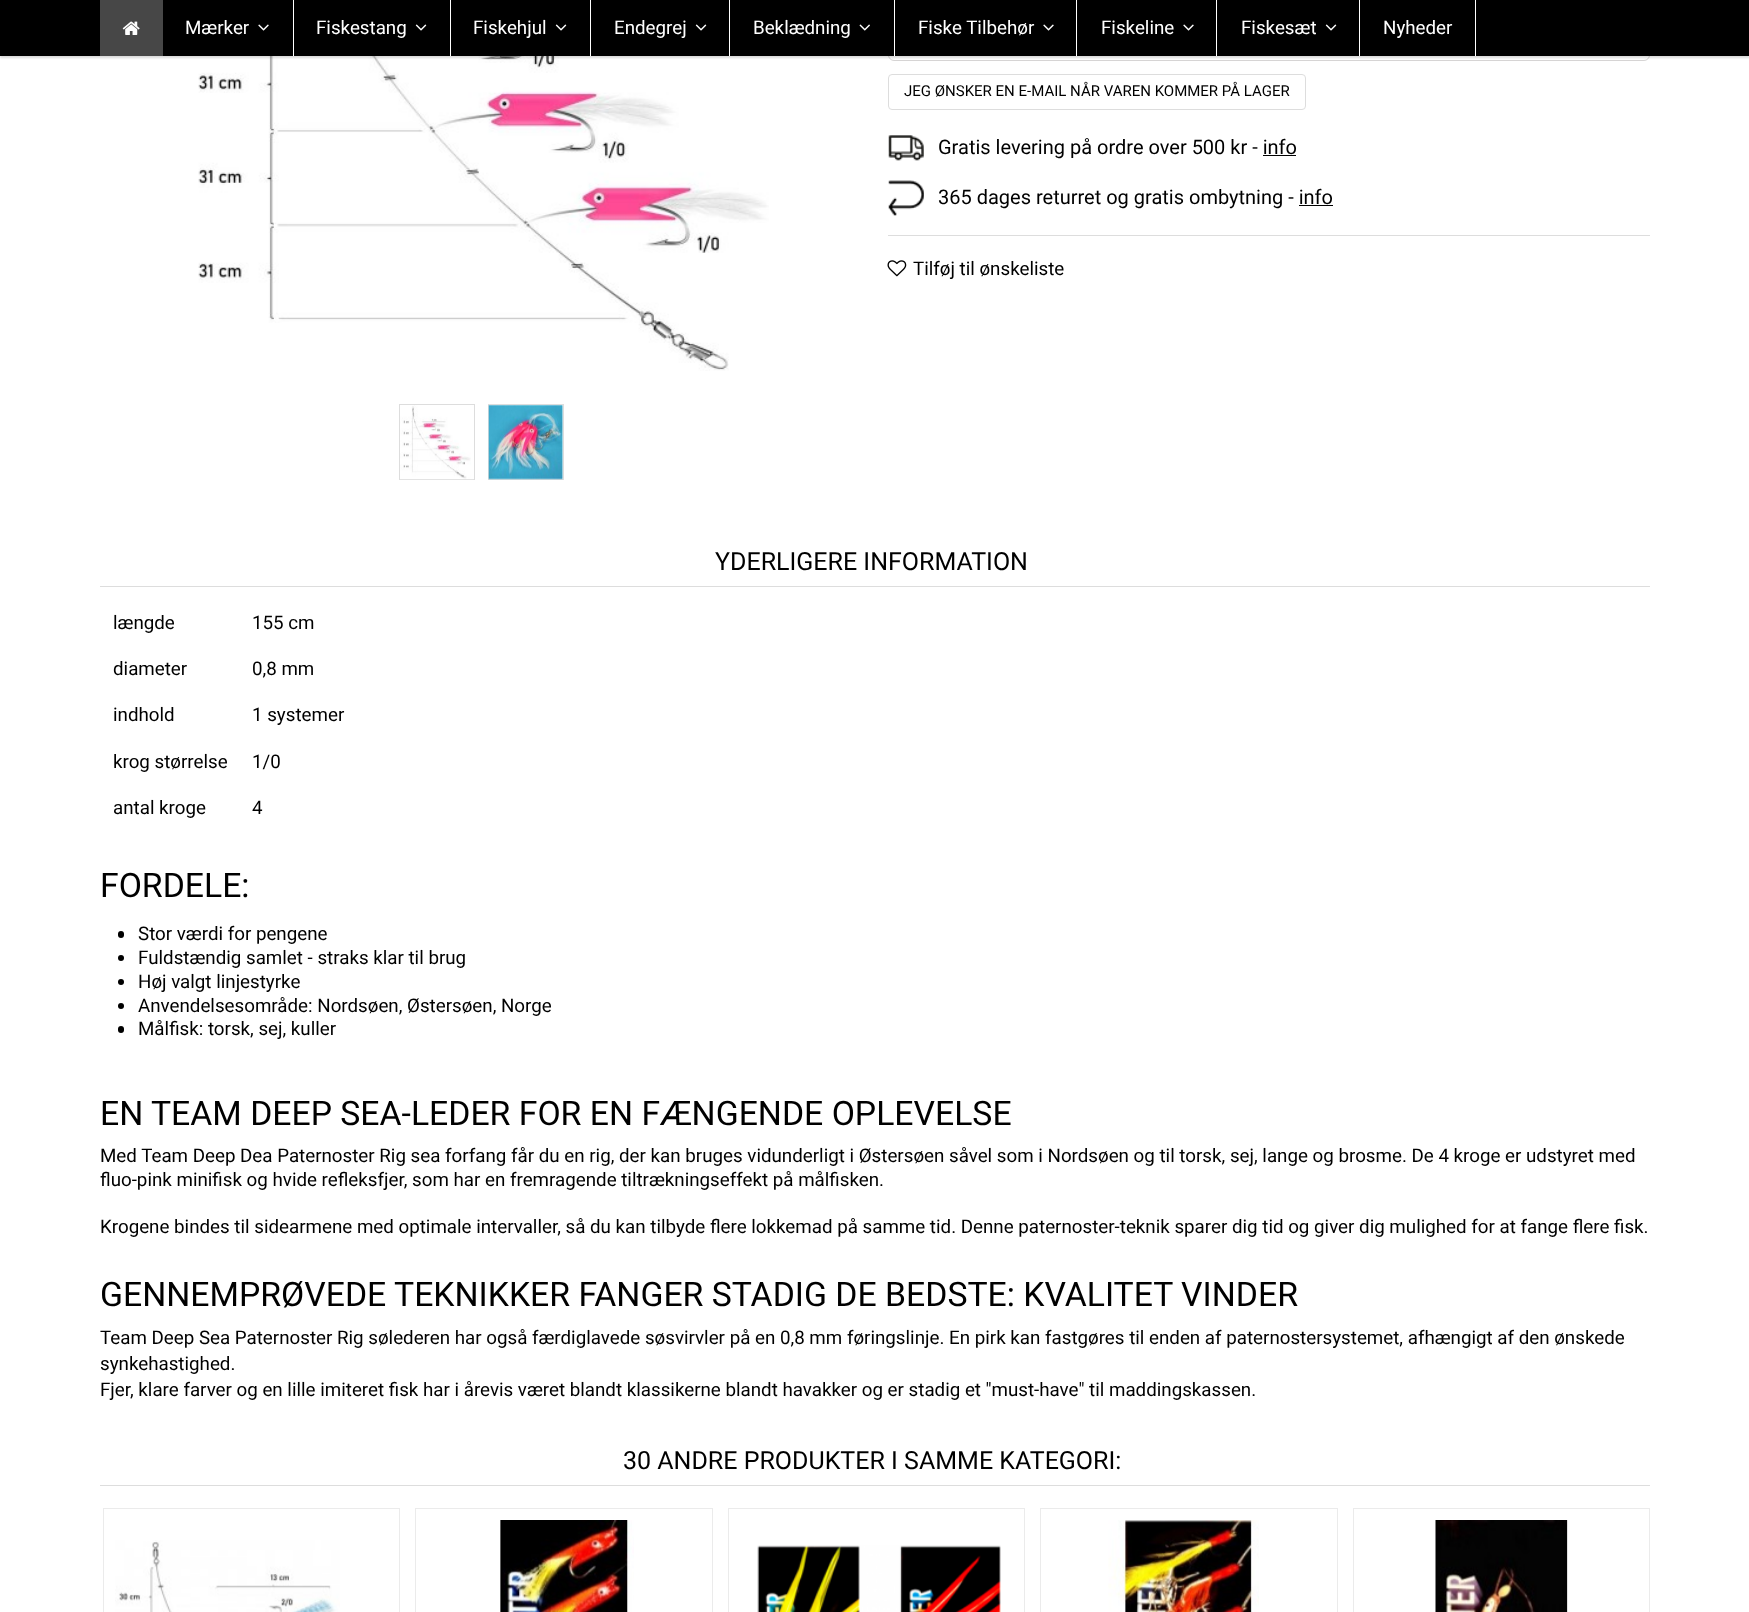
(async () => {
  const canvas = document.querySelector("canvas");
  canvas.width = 1749;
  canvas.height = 1612;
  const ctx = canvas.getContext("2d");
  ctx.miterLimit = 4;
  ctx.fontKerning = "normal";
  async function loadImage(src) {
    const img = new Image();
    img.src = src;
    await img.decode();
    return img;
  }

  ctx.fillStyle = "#ffffff";
  ctx.fillRect(0, 0, 1749, 1612);
  ctx.drawImage(await loadImage("img/5.png"), 198, 56, 571, 315);
  ctx.beginPath();
  ctx.roundRect(888.5, 28.5, 761, 32, 5.5);
  ctx.strokeStyle = "#d6d4d4";
  ctx.stroke();
  ctx.fillStyle = "rgba(0, 0, 0, 0.15)";
  ctx.filter = "blur(1px)";
  ctx.beginPath();
  ctx.rect(0, 1, 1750, 57);
  ctx.fill();
  ctx.filter = "none";
  ctx.fillStyle = "#000000";
  ctx.fillRect(0, 0, 1749, 56);
  ctx.fillStyle = "#474747";
  ctx.fillRect(100, 0, 63, 56);
  ctx.drawImage(await loadImage("img/1.png"), 122, 21, 18, 14);
  ctx.fillStyle = "#ffffff";
  ctx.fillRect(293, 0, 1, 56);
  ctx.drawImage(await loadImage("img/2.png"), 258, 24, 11, 7);
  ctx.fillRect(450, 0, 1, 56);
  ctx.drawImage(await loadImage("img/3.png"), 415, 24, 12, 7);
  ctx.fillRect(590, 0, 1, 56);
  ctx.drawImage(await loadImage("img/3.png"), 555, 24, 12, 7);
  ctx.fillRect(729, 0, 1, 56);
  ctx.drawImage(await loadImage("img/3.png"), 695, 24, 12, 7);
  ctx.fillRect(894, 0, 1, 56);
  ctx.drawImage(await loadImage("img/4.png"), 859, 24, 11, 7);
  ctx.fillRect(1076, 0, 1, 56);
  ctx.drawImage(await loadImage("img/2.png"), 1043, 24, 11, 7);
  ctx.fillRect(1216, 0, 1, 56);
  ctx.drawImage(await loadImage("img/2.png"), 1183, 24, 11, 7);
  ctx.fillRect(1359, 0, 1, 56);
  ctx.drawImage(await loadImage("img/3.png"), 1325, 24, 12, 7);
  ctx.fillRect(1475, 0, 1, 56);
  ctx.strokeStyle = "#dddddd";
  ctx.strokeRect(399.5, 404.5, 75, 75);
  ctx.drawImage(await loadImage("img/6.png"), 400, 405, 74, 75);
  ctx.strokeRect(488.5, 404.5, 75, 75);
  ctx.drawImage(await loadImage("img/7.png"), 488, 405, 75, 75);
  ctx.beginPath();
  ctx.roundRect(888.5, 74.5, 417, 35, 3.5);
  ctx.stroke();
  ctx.drawImage(await loadImage("img/8.png"), 888, 135, 36, 26);
  ctx.fillStyle = "#000000";
  ctx.fillRect(1263, 155, 33, 1);
  ctx.drawImage(await loadImage("img/9.png"), 888, 180, 36, 36);
  ctx.fillRect(1299, 205, 34, 1);
  ctx.fillStyle = "#dddddd";
  ctx.fillRect(888, 235, 762, 1);
  ctx.drawImage(await loadImage("img/10.png"), 887, 260, 20, 17);
  ctx.fillRect(100, 586, 1550, 1);
  ctx.fillStyle = "#000000";
  ctx.beginPath();
  ctx.roundRect(118, 931, 6, 7, 3);
  ctx.fill();
  ctx.beginPath();
  ctx.arc(121, 958, 3, 0, Math.PI * 2);
  ctx.fill();
  ctx.beginPath();
  ctx.arc(121, 982, 3, 0, Math.PI * 2);
  ctx.fill();
  ctx.beginPath();
  ctx.arc(121, 1006, 3, 0, Math.PI * 2);
  ctx.fill();
  ctx.beginPath();
  ctx.roundRect(118, 1026, 6, 7, 3);
  ctx.fill();
  ctx.fillStyle = "#dddddd";
  ctx.fillRect(100, 1485, 1550, 1);
  ctx.strokeStyle = "#ebebeb";
  ctx.strokeRect(103.5, 1508.5, 296, 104);
  ctx.drawImage(await loadImage("img/11.png"), 115, 1540, 225, 72);
  ctx.strokeRect(415.5, 1508.5, 297, 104);
  ctx.drawImage(await loadImage("img/12.png"), 500, 1520, 134, 92);
  ctx.strokeRect(728.5, 1508.5, 296, 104);
  ctx.drawImage(await loadImage("img/13.png"), 757, 1545, 244, 67);
  ctx.strokeRect(1040.5, 1508.5, 297, 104);
  ctx.drawImage(await loadImage("img/14.png"), 1108, 1520, 151, 92);
  ctx.strokeRect(1353.5, 1508.5, 296, 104);
  ctx.drawImage(await loadImage("img/15.png"), 1435, 1520, 133, 92);
  ctx.font = "18.75px Roboto";
  ctx.fillStyle = "#ffffff";
  for (const [text, x, y] of [
    ["Mærker", 185, 34],
    ["Fiskestang", 316, 34],
    ["Fiskehjul", 473, 34],
    ["Endegrej", 614, 34],
    ["Beklædning", 753, 34],
    ["Fiske Tilbehør", 918, 34],
    ["Fiskeline", 1101, 34],
    ["Fiskesæt", 1241, 34],
    ["Nyheder", 1383, 34],
  ]) {
    ctx.fillText(text, x, y);
  }
  ctx.font = "15px Roboto";
  ctx.fillStyle = "#000000";
  ctx.fillText("JEG ØNSKER EN E-MAIL NÅR VAREN KOMMER PÅ LAGER", 904, 96);
  ctx.font = "20px Roboto";
  ctx.fillText("Gratis levering på ordre over 500 kr - info", 938, 154);
  ctx.fillText("365 dages returret og gratis ombytning - info", 938, 204);
  ctx.font = "18.75px Roboto";
  ctx.fillText("Tilføj til ønskeliste", 913, 275);
  ctx.font = "25px Roboto";
  ctx.fillText("YDERLIGERE INFORMATION", 715, 570);
  ctx.font = "18.75px Roboto";
  for (const [text, x, y] of [
    ["længde", 113, 629],
    ["155 cm", 252, 629],
    ["diameter", 113, 675],
    ["0,8 mm", 252, 675],
    ["indhold", 113, 721],
    ["1 systemer", 252, 721],
    ["krog størrelse", 113, 768],
    ["1/0", 252, 768],
    ["antal kroge", 113, 814],
    ["4", 252, 814],
  ]) {
    ctx.fillText(text, x, y);
  }
  ctx.font = "33.75px Roboto";
  ctx.fillText("FORDELE:", 100, 897);
  ctx.font = "18.75px Roboto";
  for (const [text, x, y] of [
    ["Stor værdi for pengene", 138, 940],
    ["Fuldstændig samlet - straks klar til brug", 138, 964],
    ["Høj valgt linjestyrke", 138, 988],
    ["Anvendelsesområde: Nordsøen, Østersøen, Norge", 138, 1012],
    ["Målfisk: torsk, sej, kuller", 138, 1035],
  ]) {
    ctx.fillText(text, x, y);
  }
  ctx.font = "33.75px Roboto";
  ctx.fillText("EN TEAM DEEP SEA-LEDER FOR EN FÆNGENDE OPLEVELSE", 100, 1125);
  ctx.font = "18.75px Roboto";
  for (const [text, x, y] of [
    ["Med Team Deep Dea Paternoster Rig sea forfang får du en rig, der kan bruges vidunderligt i Østersøen såvel som i Nordsøen og til torsk, sej, lange og brosme. De 4 kroge er udstyret med", 100, 1162],
    ["fluo-pink minifisk og hvide refleksfjer, som har en fremragende tiltrækningseffekt på målfisken.", 100, 1186],
    ["Krogene bindes til sidearmene med optimale intervaller, så du kan tilbyde flere lokkemad på samme tid. Denne paternoster-teknik sparer dig tid og giver dig mulighed for at fange flere fisk.", 100, 1233],
  ]) {
    ctx.fillText(text, x, y);
  }
  ctx.font = "33.75px Roboto";
  ctx.fillText("GENNEMPRØVEDE TEKNIKKER FANGER STADIG DE BEDSTE: KVALITET VINDER", 100, 1306);
  ctx.font = "18.75px Roboto";
  for (const [text, x, y] of [
    ["Team Deep Sea Paternoster Rig sølederen har også færdiglavede søsvirvler på en 0,8 mm føringslinje. En pirk kan fastgøres til enden af paternostersystemet, afhængigt af den ønskede", 100, 1344],
    ["synkehastighed.", 100, 1370],
    ["Fjer, klare farver og en lille imiteret fisk har i årevis været blandt klassikerne blandt havakker og er stadig et \"must-have\" til maddingskassen.", 100, 1396],
  ]) {
    ctx.fillText(text, x, y);
  }
  ctx.font = "25px Roboto";
  ctx.fillText("30 ANDRE PRODUKTER I SAMME KATEGORI:", 623, 1469);
})();
